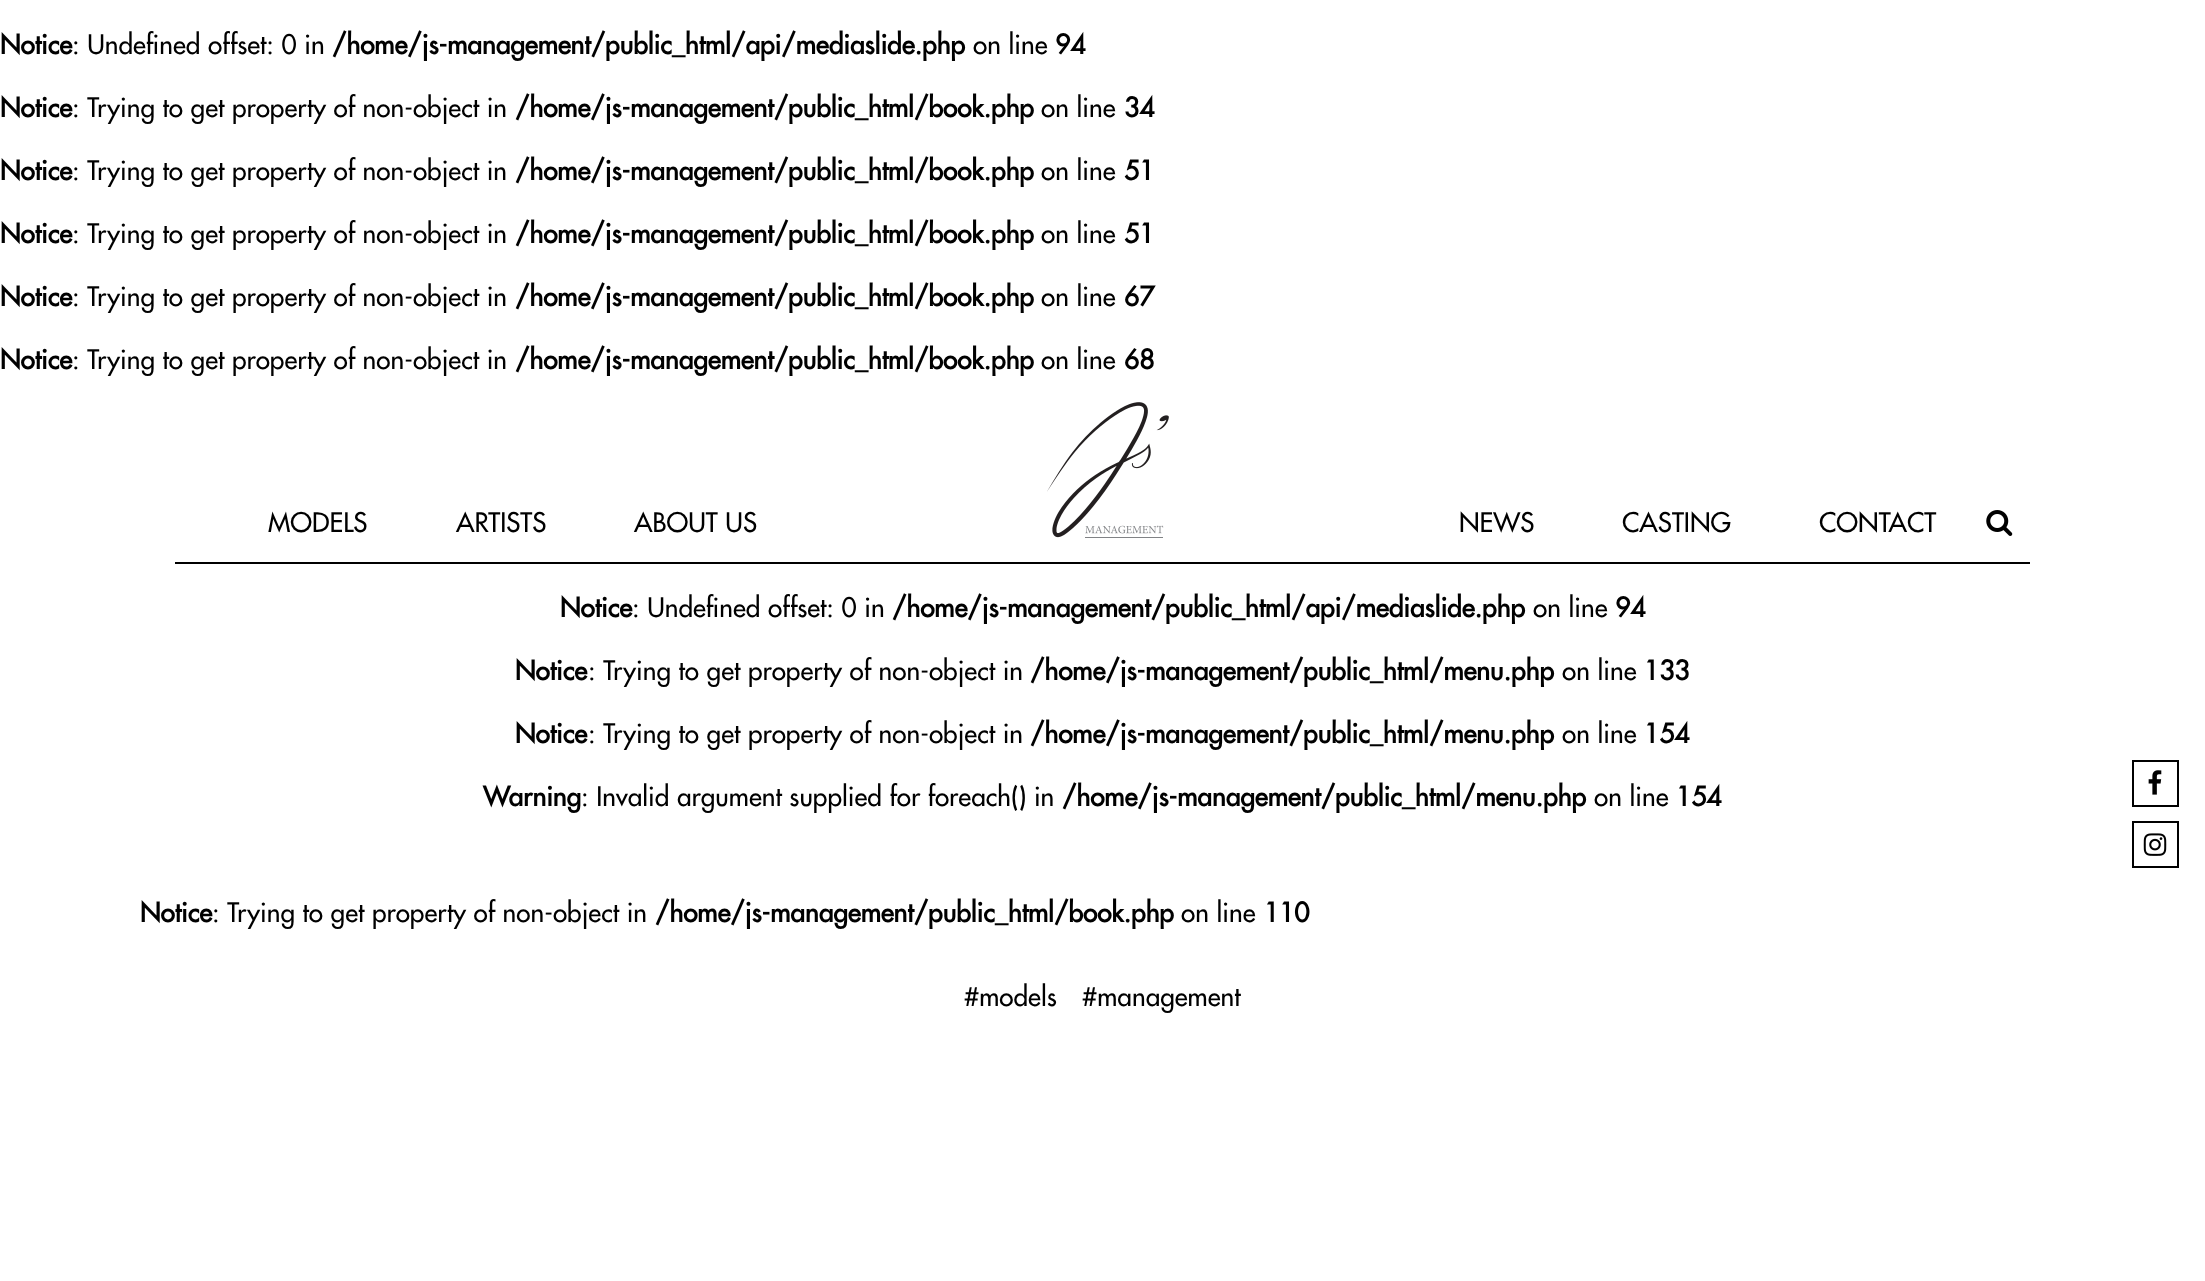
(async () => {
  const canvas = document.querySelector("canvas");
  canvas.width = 2205;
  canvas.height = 1281;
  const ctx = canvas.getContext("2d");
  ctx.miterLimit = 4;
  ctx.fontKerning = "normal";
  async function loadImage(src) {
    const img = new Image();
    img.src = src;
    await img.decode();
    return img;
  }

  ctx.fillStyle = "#ffffff";
  ctx.fillRect(0, 0, 2205, 1281);
  ctx.fillStyle = "#000000";
  ctx.fillRect(175, 562, 1855, 2);
  ctx.drawImage(await loadImage("img/1.png"), 1047, 402, 122, 136);
  ctx.drawImage(await loadImage("img/2.png"), 1986, 510, 27, 26);
  ctx.strokeStyle = "#000000";
  ctx.lineWidth = 2;
  ctx.strokeRect(2133, 761, 45, 45);
  ctx.drawImage(await loadImage("img/3.png"), 2148, 770, 14, 25);
  ctx.strokeRect(2133, 822, 45, 45);
  ctx.drawImage(await loadImage("img/4.png"), 2143, 833, 24, 23);
  ctx.font = "bold 26.25px Futura";
  ctx.fillText("Notice", 0, 54);
  ctx.font = "500 26.25px Futura";
  ctx.fillText(": Undefined offset: 0 in", 72, 54);
  ctx.font = "bold 26.25px Futura";
  ctx.fillText("/home/js-management/public_html/api/mediaslide.php", 332, 54);
  ctx.font = "500 26.25px Futura";
  ctx.fillText("on line", 973, 54);
  ctx.font = "bold 26.25px Futura";
  ctx.fillText("94", 1055, 54);
  ctx.fillText("Notice", 0, 117);
  ctx.font = "500 26.25px Futura";
  ctx.fillText(": Trying to get property of non-object in", 72, 117);
  ctx.font = "bold 26.25px Futura";
  ctx.fillText("/home/js-management/public_html/book.php", 515, 117);
  ctx.font = "500 26.25px Futura";
  ctx.fillText("on line", 1041, 117);
  ctx.font = "bold 26.25px Futura";
  ctx.fillText("34", 1124, 117);
  ctx.fillText("Notice", 0, 180);
  ctx.font = "500 26.25px Futura";
  ctx.fillText(": Trying to get property of non-object in", 72, 180);
  ctx.font = "bold 26.25px Futura";
  ctx.fillText("/home/js-management/public_html/book.php", 515, 180);
  ctx.font = "500 26.25px Futura";
  ctx.fillText("on line", 1041, 180);
  ctx.font = "bold 26.25px Futura";
  ctx.fillText("51", 1124, 180);
  ctx.fillText("Notice", 0, 243);
  ctx.font = "500 26.25px Futura";
  ctx.fillText(": Trying to get property of non-object in", 72, 243);
  ctx.font = "bold 26.25px Futura";
  ctx.fillText("/home/js-management/public_html/book.php", 515, 243);
  ctx.font = "500 26.25px Futura";
  ctx.fillText("on line", 1041, 243);
  ctx.font = "bold 26.25px Futura";
  ctx.fillText("51", 1124, 243);
  ctx.fillText("Notice", 0, 306);
  ctx.font = "500 26.25px Futura";
  ctx.fillText(": Trying to get property of non-object in", 72, 306);
  ctx.font = "bold 26.25px Futura";
  ctx.fillText("/home/js-management/public_html/book.php", 515, 306);
  ctx.font = "500 26.25px Futura";
  ctx.fillText("on line", 1041, 306);
  ctx.font = "bold 26.25px Futura";
  ctx.fillText("67", 1124, 306);
  ctx.fillText("Notice", 0, 369);
  ctx.font = "500 26.25px Futura";
  ctx.fillText(": Trying to get property of non-object in", 72, 369);
  ctx.font = "bold 26.25px Futura";
  ctx.fillText("/home/js-management/public_html/book.php", 515, 369);
  ctx.font = "500 26.25px Futura";
  ctx.fillText("on line", 1041, 369);
  ctx.font = "bold 26.25px Futura";
  ctx.fillText("68", 1124, 369);
  ctx.font = "500 26.25px Futura";
  for (const [text, x, y] of [
    ["MODELS", 268, 532],
    ["ARTISTS", 456, 532],
    ["ABOUT US", 634, 532],
    ["NEWS", 1459, 532],
    ["CASTING", 1622, 532],
    ["CONTACT", 1819, 532],
  ]) {
    ctx.fillText(text, x, y);
  }
  ctx.font = "bold 26.25px Futura";
  ctx.fillText("Notice", 560, 617);
  ctx.font = "500 26.25px Futura";
  ctx.fillText(": Undefined offset: 0 in", 632, 617);
  ctx.font = "bold 26.25px Futura";
  ctx.fillText("/home/js-management/public_html/api/mediaslide.php", 892, 617);
  ctx.font = "500 26.25px Futura";
  ctx.fillText("on line", 1533, 617);
  ctx.font = "bold 26.25px Futura";
  ctx.fillText("94", 1615, 617);
  ctx.fillText("Notice", 515, 680);
  ctx.font = "500 26.25px Futura";
  ctx.fillText(": Trying to get property of non-object in", 588, 680);
  ctx.font = "bold 26.25px Futura";
  ctx.fillText("/home/js-management/public_html/menu.php", 1030, 680);
  ctx.font = "500 26.25px Futura";
  ctx.fillText("on line", 1562, 680);
  ctx.font = "bold 26.25px Futura";
  ctx.fillText("133", 1644, 680);
  ctx.fillText("Notice", 515, 743);
  ctx.font = "500 26.25px Futura";
  ctx.fillText(": Trying to get property of non-object in", 588, 743);
  ctx.font = "bold 26.25px Futura";
  ctx.fillText("/home/js-management/public_html/menu.php", 1030, 743);
  ctx.font = "500 26.25px Futura";
  ctx.fillText("on line", 1562, 743);
  ctx.font = "bold 26.25px Futura";
  ctx.fillText("154", 1644, 743);
  ctx.fillText("Warning", 483, 806);
  ctx.font = "500 26.25px Futura";
  ctx.fillText(": Invalid argument supplied for foreach() in", 581, 806);
  ctx.font = "bold 26.25px Futura";
  ctx.fillText("/home/js-management/public_html/menu.php", 1062, 806);
  ctx.font = "500 26.25px Futura";
  ctx.fillText("on line", 1594, 806);
  ctx.font = "bold 26.25px Futura";
  ctx.fillText("154", 1676, 806);
  ctx.fillText("Notice", 140, 922);
  ctx.font = "500 26.25px Futura";
  ctx.fillText(": Trying to get property of non-object in", 212, 922);
  ctx.font = "bold 26.25px Futura";
  ctx.fillText("/home/js-management/public_html/book.php", 655, 922);
  ctx.font = "500 26.25px Futura";
  ctx.fillText("on line", 1181, 922);
  ctx.font = "bold 26.25px Futura";
  ctx.fillText("110", 1264, 922);
  ctx.font = "500 26.25px Futura";
  ctx.fillText("#models", 964, 1006);
  ctx.fillText("#management", 1082, 1006);
})();
